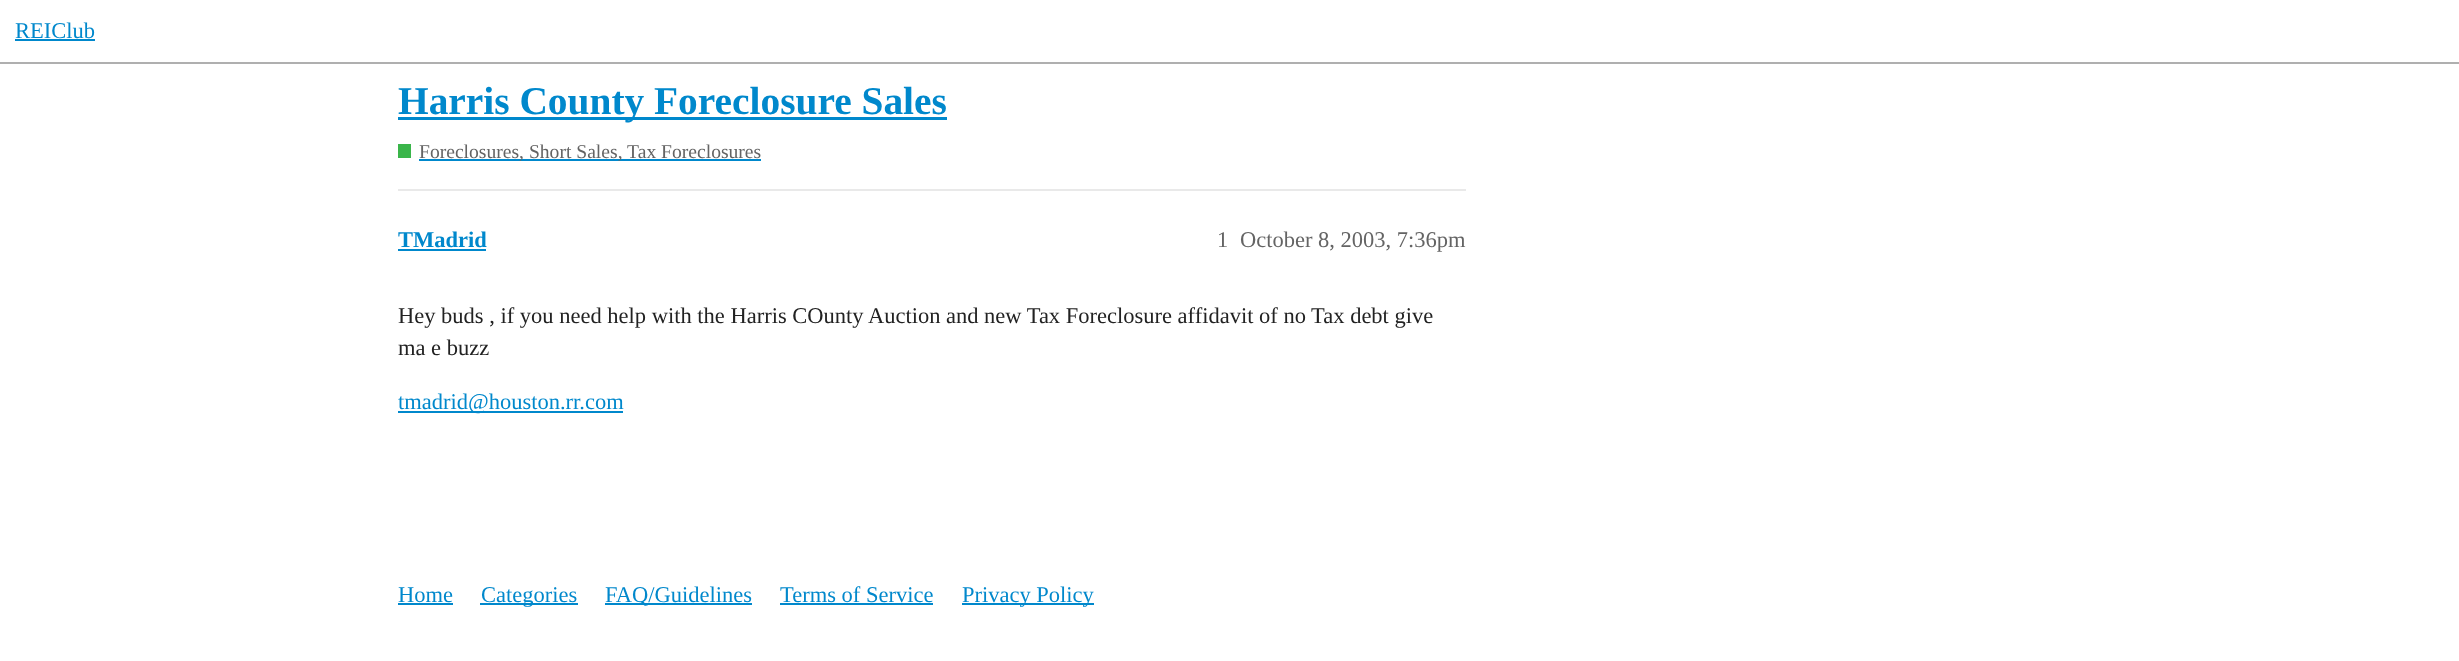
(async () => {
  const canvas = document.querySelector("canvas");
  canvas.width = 2459;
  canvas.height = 661;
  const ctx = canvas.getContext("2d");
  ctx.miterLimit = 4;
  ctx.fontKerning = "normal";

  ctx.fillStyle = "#ffffff";
  ctx.fillRect(0, 0, 2459, 661);
  for (const [x, y, w, h, color] of [
    [0, 62, 2459, 2, "#afafaf"],
    [15, 39, 80, 2, "#0088cc"],
    [398, 117, 549, 3, "#0088cc"],
    [398, 144, 13, 14, "#3ab54a"],
    [419, 159, 342, 2, "#0088cc"],
    [398, 189, 1068, 2, "#e9e9e9"],
    [398, 249, 88, 2, "#0088cc"],
    [398, 411, 225, 2, "#0088cc"],
    [398, 603, 55, 2, "#0088cc"],
    [480, 603, 98, 2, "#0088cc"],
    [605, 603, 147, 2, "#0088cc"],
    [780, 603, 153, 2, "#0088cc"],
    [962, 603, 132, 2, "#0088cc"],
  ]) {
    ctx.fillStyle = color;
    ctx.fillRect(x, y, w, h);
  }
  ctx.font = "22.5px Liberation Serif";
  ctx.fillText("REIClub", 15, 38);
  ctx.font = "bold 39.4px Liberation Serif";
  ctx.fillText("Harris County Foreclosure Sales", 398, 114);
  ctx.font = "19.6px Liberation Serif";
  ctx.fillStyle = "#646464";
  ctx.fillText("Foreclosures, Short Sales, Tax Foreclosures", 419, 158);
  ctx.font = "bold 22.5px Liberation Serif";
  ctx.fillStyle = "#0088cc";
  ctx.fillText("TMadrid", 398, 247);
  ctx.font = "22.5px Liberation Serif";
  ctx.fillStyle = "#646464";
  ctx.fillText("1", 1217, 247);
  ctx.fillText("October 8, 2003, 7:36pm", 1240, 247);
  ctx.fillStyle = "#222222";
  for (const [text, x, y] of [
    ["Hey buds , if you need help with the Harris COunty Auction and", 398, 323],
    ["new Tax Foreclosure affidavit of no Tax debt give", 984, 323],
    ["ma e buzz", 398, 355],
  ]) {
    ctx.fillText(text, x, y);
  }
  ctx.fillStyle = "#0088cc";
  for (const [text, x, y] of [
    ["tmadrid@houston.rr.com", 398, 409],
    ["Home", 398, 602],
    ["Categories", 481, 602],
    ["FAQ/Guidelines", 605, 602],
    ["Terms of Service", 780, 602],
    ["Privacy Policy", 962, 602],
  ]) {
    ctx.fillText(text, x, y);
  }
})();
